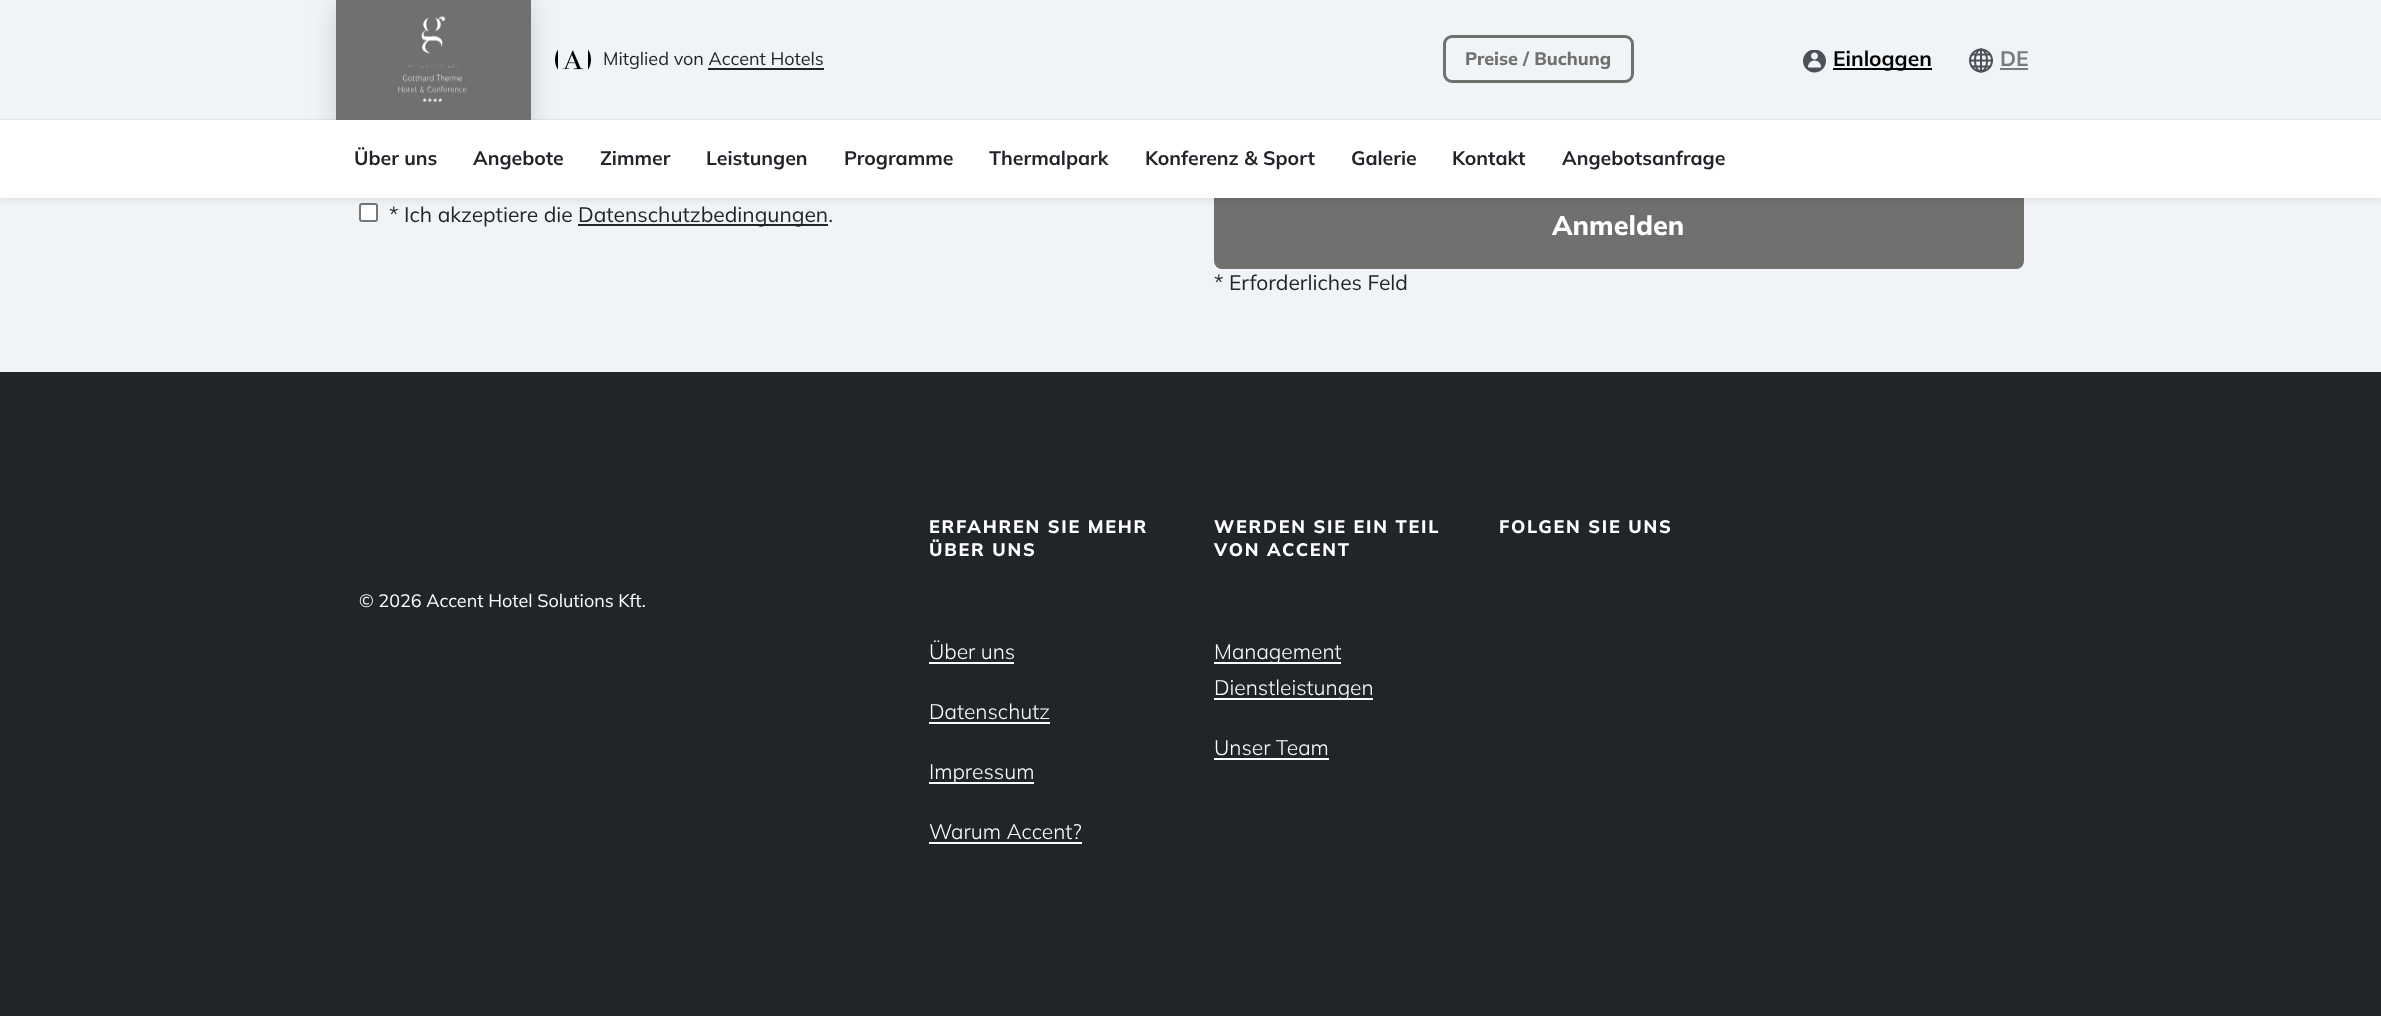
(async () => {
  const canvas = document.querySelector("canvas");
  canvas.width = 2381;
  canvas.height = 1016;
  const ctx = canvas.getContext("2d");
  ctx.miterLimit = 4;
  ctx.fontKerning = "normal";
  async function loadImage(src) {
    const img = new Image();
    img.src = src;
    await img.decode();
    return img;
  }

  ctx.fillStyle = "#f0f4f7";
  ctx.fillRect(0, 0, 2381, 1016);
  ctx.fillStyle = "#e1e9f0";
  ctx.fillRect(0, 119, 2381, 1);
  ctx.fillStyle = "rgba(0, 0, 0, 0.15)";
  ctx.filter = "blur(12px)";
  ctx.beginPath();
  ctx.rect(336, 3, 195, 138);
  ctx.fill();
  ctx.filter = "none";
  ctx.fillStyle = "#70706f";
  ctx.fillRect(336, 0, 195, 120);
  ctx.drawImage(await loadImage("img/1.png"), 398, 16, 69, 87);
  ctx.drawImage(await loadImage("img/2.png"), 1803, 50, 23, 23);
  ctx.fillStyle = "#000000";
  ctx.fillRect(1833, 68, 99, 2);
  ctx.drawImage(await loadImage("img/3.png"), 1969, 48, 24, 25);
  ctx.fillStyle = "#787a7c";
  ctx.fillRect(2000, 68, 28, 2);
  ctx.fillStyle = "#ffffff";
  ctx.beginPath();
  ctx.roundRect(360, 204, 17, 17, 2);
  ctx.fill();
  ctx.strokeStyle = "#767676";
  ctx.lineWidth = 2;
  ctx.stroke();
  ctx.fillStyle = "#70706f";
  ctx.beginPath();
  ctx.roundRect(1214, 183, 810, 86, 8);
  ctx.fill();
  ctx.fillStyle = "rgba(0, 0, 0, 0.07)";
  ctx.filter = "blur(3px)";
  ctx.beginPath();
  ctx.rect(0, 123, 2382, 78);
  ctx.fill();
  ctx.filter = "none";
  ctx.fillStyle = "#ffffff";
  ctx.fillRect(0, 120, 2381, 78);
  ctx.drawImage(await loadImage("img/4.png"), 555, 50, 36, 20);
  ctx.fillStyle = "#212429";
  ctx.fillRect(708, 68, 116, 2);
  ctx.beginPath();
  ctx.roundRect(1444.5, 36.5, 188, 45, 7.5);
  ctx.strokeStyle = "#70706f";
  ctx.lineWidth = 3;
  ctx.stroke();
  for (const [x, y, w, h, color] of [
    [578, 224, 250, 2, "#212429"],
    [0, 372, 2381, 644, "#212429"],
    [929, 662, 85, 2, "#ffffff"],
    [929, 722, 121, 2, "#ffffff"],
    [929, 782, 105, 2, "#ffffff"],
    [929, 842, 153, 2, "#ffffff"],
    [1214, 662, 127, 2, "#ffffff"],
    [1214, 698, 159, 2, "#ffffff"],
    [1214, 758, 115, 2, "#ffffff"],
  ]) {
    ctx.fillStyle = color;
    ctx.fillRect(x, y, w, h);
  }
  ctx.font = "200 21px 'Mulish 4'";
  ctx.fillStyle = "#000000";
  ctx.fillText("Einloggen", 1833, 66);
  ctx.fillStyle = "#787a7c";
  ctx.fillText("DE", 2000, 66);
  ctx.font = "200 19.5px 'Mulish 4'";
  ctx.fillStyle = "#212429";
  for (const [text, x, y] of [
    ["Über uns", 354, 165],
    ["Angebote", 473, 165],
    ["Zimmer", 600, 165],
    ["Leistungen", 706, 165],
    ["Programme", 844, 165],
    ["Thermalpark", 989, 165],
    ["Konferenz & Sport", 1145, 165],
    ["Galerie", 1351, 165],
    ["Kontakt", 1452, 165],
    ["Angebotsanfrage", 1562, 165],
  ]) {
    ctx.fillText(text, x, y);
  }
  ctx.font = "200 18px Mulish";
  ctx.fillText("Mitglied von Accent Hotels", 603, 65);
  ctx.font = "200 18px 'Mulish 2'";
  ctx.fillStyle = "#70706f";
  ctx.fillText("Preise / Buchung", 1465, 65);
  ctx.font = "200 21px Mulish";
  ctx.fillStyle = "#212429";
  ctx.fillText("* Ich akzeptiere die", 389, 222);
  ctx.fillText("Datenschutzbedingungen.", 578, 222);
  ctx.font = "200 27px 'Mulish 2'";
  ctx.fillStyle = "#ffffff";
  ctx.fillText("Anmelden", 1552, 235);
  ctx.font = "200 21px Mulish";
  ctx.fillStyle = "#212429";
  ctx.fillText("* Erforderliches Feld", 1214, 290);
  ctx.letterSpacing = "1.75px";
  ctx.font = "200 18px 'Mulish 2'";
  ctx.fillStyle = "#ffffff";
  ctx.fillText("ERFAHREN SIE MEHR", 929, 533);
  ctx.fillText("ÜBER UNS", 929, 556);
  ctx.letterSpacing = "0px";
  ctx.font = "200 21px 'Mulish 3'";
  for (const [text, x, y] of [
    ["Über uns", 929, 659],
    ["Datenschutz", 929, 719],
    ["Impressum", 929, 779],
    ["Warum Accent?", 929, 839],
  ]) {
    ctx.fillText(text, x, y);
  }
  ctx.letterSpacing = "1.75px";
  ctx.font = "200 18px 'Mulish 2'";
  ctx.fillText("WERDEN SIE EIN TEIL", 1214, 533);
  ctx.fillText("VON ACCENT", 1214, 556);
  ctx.letterSpacing = "0px";
  ctx.font = "200 21px 'Mulish 3'";
  for (const [text, x, y] of [
    ["Management", 1214, 659],
    ["Dienstleistungen", 1214, 695],
    ["Unser Team", 1214, 755],
  ]) {
    ctx.fillText(text, x, y);
  }
  ctx.letterSpacing = "1.75px";
  ctx.font = "200 18px 'Mulish 2'";
  ctx.fillText("FOLGEN SIE UNS", 1499, 533);
  ctx.letterSpacing = "0px";
  ctx.font = "200 18px Mulish";
  ctx.fillText("© 2026 Accent Hotel Solutions Kft.", 359, 607);
})();
